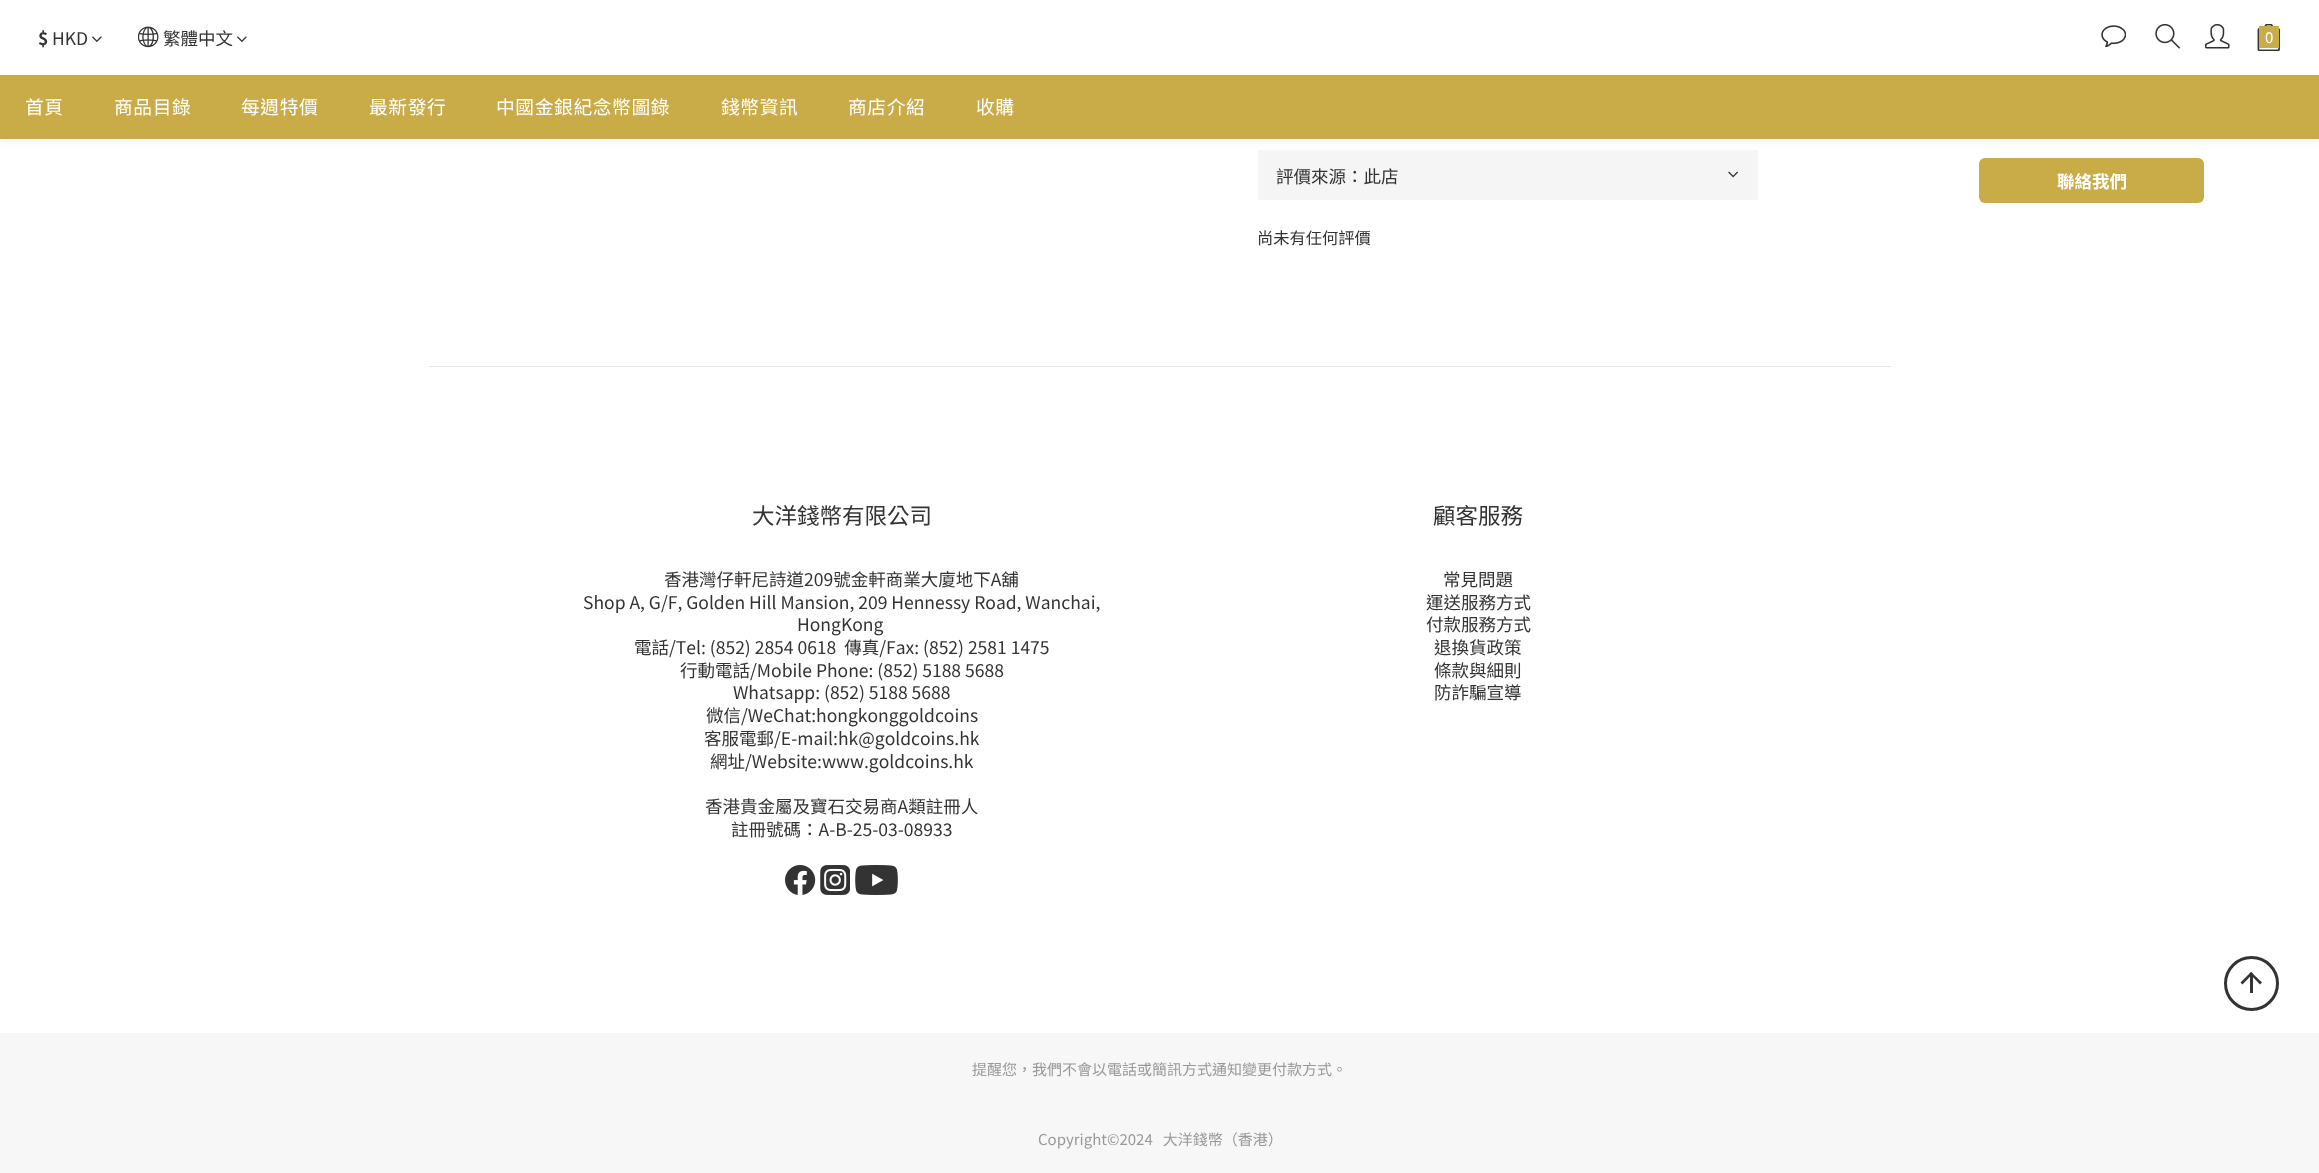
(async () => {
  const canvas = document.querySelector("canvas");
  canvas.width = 2319;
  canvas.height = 1173;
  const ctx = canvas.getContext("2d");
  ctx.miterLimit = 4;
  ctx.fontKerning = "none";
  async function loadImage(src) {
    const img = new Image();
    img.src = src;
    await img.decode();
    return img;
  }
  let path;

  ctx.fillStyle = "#ffffff";
  ctx.fillRect(0, 0, 2319, 1173);
  ctx.fillStyle = "#f5f5f5";
  ctx.fillRect(1258, 150, 500, 50);
  ctx.fillStyle = "rgba(0, 0, 0, 0.06)";
  ctx.filter = "blur(4px)";
  ctx.beginPath();
  ctx.rect(0, 3, 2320, 138);
  ctx.fill();
  ctx.filter = "none";
  ctx.fillStyle = "#ffffff";
  ctx.fillRect(0, 0, 2319, 75);
  ctx.drawImage(await loadImage("img/1.png"), 92, 36, 10, 6);
  ctx.drawImage(await loadImage("img/2.png"), 138, 26, 21, 22);
  ctx.drawImage(await loadImage("img/1.png"), 237, 36, 10, 6);
  ctx.drawImage(await loadImage("img/3.png"), 2101, 25, 25, 23);
  ctx.drawImage(await loadImage("img/4.png"), 2155, 24, 25, 25);
  ctx.drawImage(await loadImage("img/5.png"), 2205, 24, 25, 25);
  ctx.drawImage(await loadImage("img/6.png"), 2257, 24, 23, 27);
  ctx.fillStyle = "#c9ac48";
  ctx.fillRect(2259, 26, 20, 22);
  ctx.fillRect(0, 75, 2319, 64);
  ctx.drawImage(await loadImage("img/7.png"), 1728, 171, 10, 7);
  ctx.beginPath();
  ctx.roundRect(1979, 158, 225, 45, 6);
  ctx.fill();
  ctx.fillStyle = "#e6e6e6";
  ctx.fillRect(429, 366, 1462, 1);
  ctx.drawImage(await loadImage("img/8.png"), 785, 865, 31, 30);
  ctx.drawImage(await loadImage("img/9.png"), 820, 865, 30, 30);
  ctx.drawImage(await loadImage("img/10.png"), 855, 865, 43, 30);
  ctx.fillStyle = "#f7f7f7";
  ctx.fillRect(0, 1033, 2319, 140);
  ctx.beginPath();
  ctx.arc(2251.5, 983.5, 26, 0, Math.PI * 2);
  ctx.strokeStyle = "#333333";
  ctx.lineWidth = 3;
  ctx.stroke();
  ctx.fillStyle = "#333333";
  path = new Path2D("M2251 972L2262 982.5L2260 984.5L2249.5 973.5Z");
  ctx.fill(path);
  path = new Path2D("M2251 972L2253 973.5L2242.5 984.5L2240.5 982.5Z");
  ctx.fill(path);
  ctx.fillRect(2250, 975, 3, 18);
  ctx.font = "bold 17.5px Noto Sans TC";
  ctx.fillText("$", 38, 45);
  ctx.font = "17.5px Noto Sans TC";
  ctx.fillText("HKD", 52, 45);
  ctx.fillText("繁體中文", 163, 45);
  ctx.font = "15px Noto Sans TC";
  ctx.fillStyle = "#ffffff";
  ctx.fillText("0", 2265, 43);
  ctx.letterSpacing = "0.6px";
  ctx.font = "18.75px Noto Sans TC";
  for (const [text, x, y] of [
    ["首頁", 25, 114],
    ["商品目錄", 114, 114],
    ["每週特價", 241, 114],
    ["最新發行", 369, 114],
    ["中國金銀紀念幣圖錄", 496, 114],
    ["錢幣資訊", 721, 114],
    ["商店介紹", 848, 114],
    ["收購", 976, 114],
  ]) {
    ctx.fillText(text, x, y);
  }
  ctx.letterSpacing = "0px";
  ctx.font = "17.5px Noto Sans TC";
  ctx.fillStyle = "#333333";
  ctx.fillText("評價來源：此店", 1276, 183);
  ctx.font = "16.25px Noto Sans TC";
  ctx.fillText("尚未有任何評價", 1257, 244);
  ctx.font = "bold 17.5px Noto Sans TC";
  ctx.fillStyle = "#ffffff";
  ctx.fillText("聯絡我們", 2057, 188);
  ctx.font = "22.5px Noto Sans TC";
  ctx.fillStyle = "#333333";
  ctx.fillText("大洋錢幣有限公司", 752, 524);
  ctx.font = "17.5px Noto Sans TC";
  for (const [text, x, y] of [
    ["香港灣仔軒尼詩道209號金軒商業大廈地下A舖", 664, 586],
    ["Shop A, G/F, Golden Hill Mansion, 209 Hennessy Road, Wanchai,", 583, 609],
    ["HongKong", 797, 631],
    ["電話/Tel: (852) 2854 0618  傳真/Fax: (852) 2581 1475", 634, 654],
    ["行動電話/Mobile Phone: (852) 5188 5688", 680, 677],
    ["Whatsapp: (852) 5188 5688", 733, 699],
    ["微信/WeChat:hongkonggoldcoins", 706, 722],
    ["客服電郵/E-mail:hk@goldcoins.hk", 704, 745],
    ["網址/Website:www.goldcoins.hk", 710, 768],
    ["香港貴金屬及寶石交易商A類註冊人", 705, 813],
    ["註冊號碼：A-B-25-03-08933", 731, 836],
  ]) {
    ctx.fillText(text, x, y);
  }
  ctx.font = "22.5px Noto Sans TC";
  ctx.fillText("顧客服務", 1433, 524);
  ctx.font = "17.5px Noto Sans TC";
  for (const [text, x, y] of [
    ["常見問題", 1443, 586],
    ["運送服務方式", 1426, 609],
    ["付款服務方式", 1426, 631],
    ["退換貨政策", 1434, 654],
    ["條款與細則", 1434, 677],
    ["防詐騙宣導", 1434, 699],
  ]) {
    ctx.fillText(text, x, y);
  }
  ctx.font = "15px Noto Sans TC";
  ctx.fillStyle = "#999999";
  ctx.fillText("提醒您，我們不會以電話或簡訊方式通知變更付款方式。", 972, 1075);
  ctx.fillText("Copyright©2024   大洋錢幣（香港）", 1038, 1145);
})();
